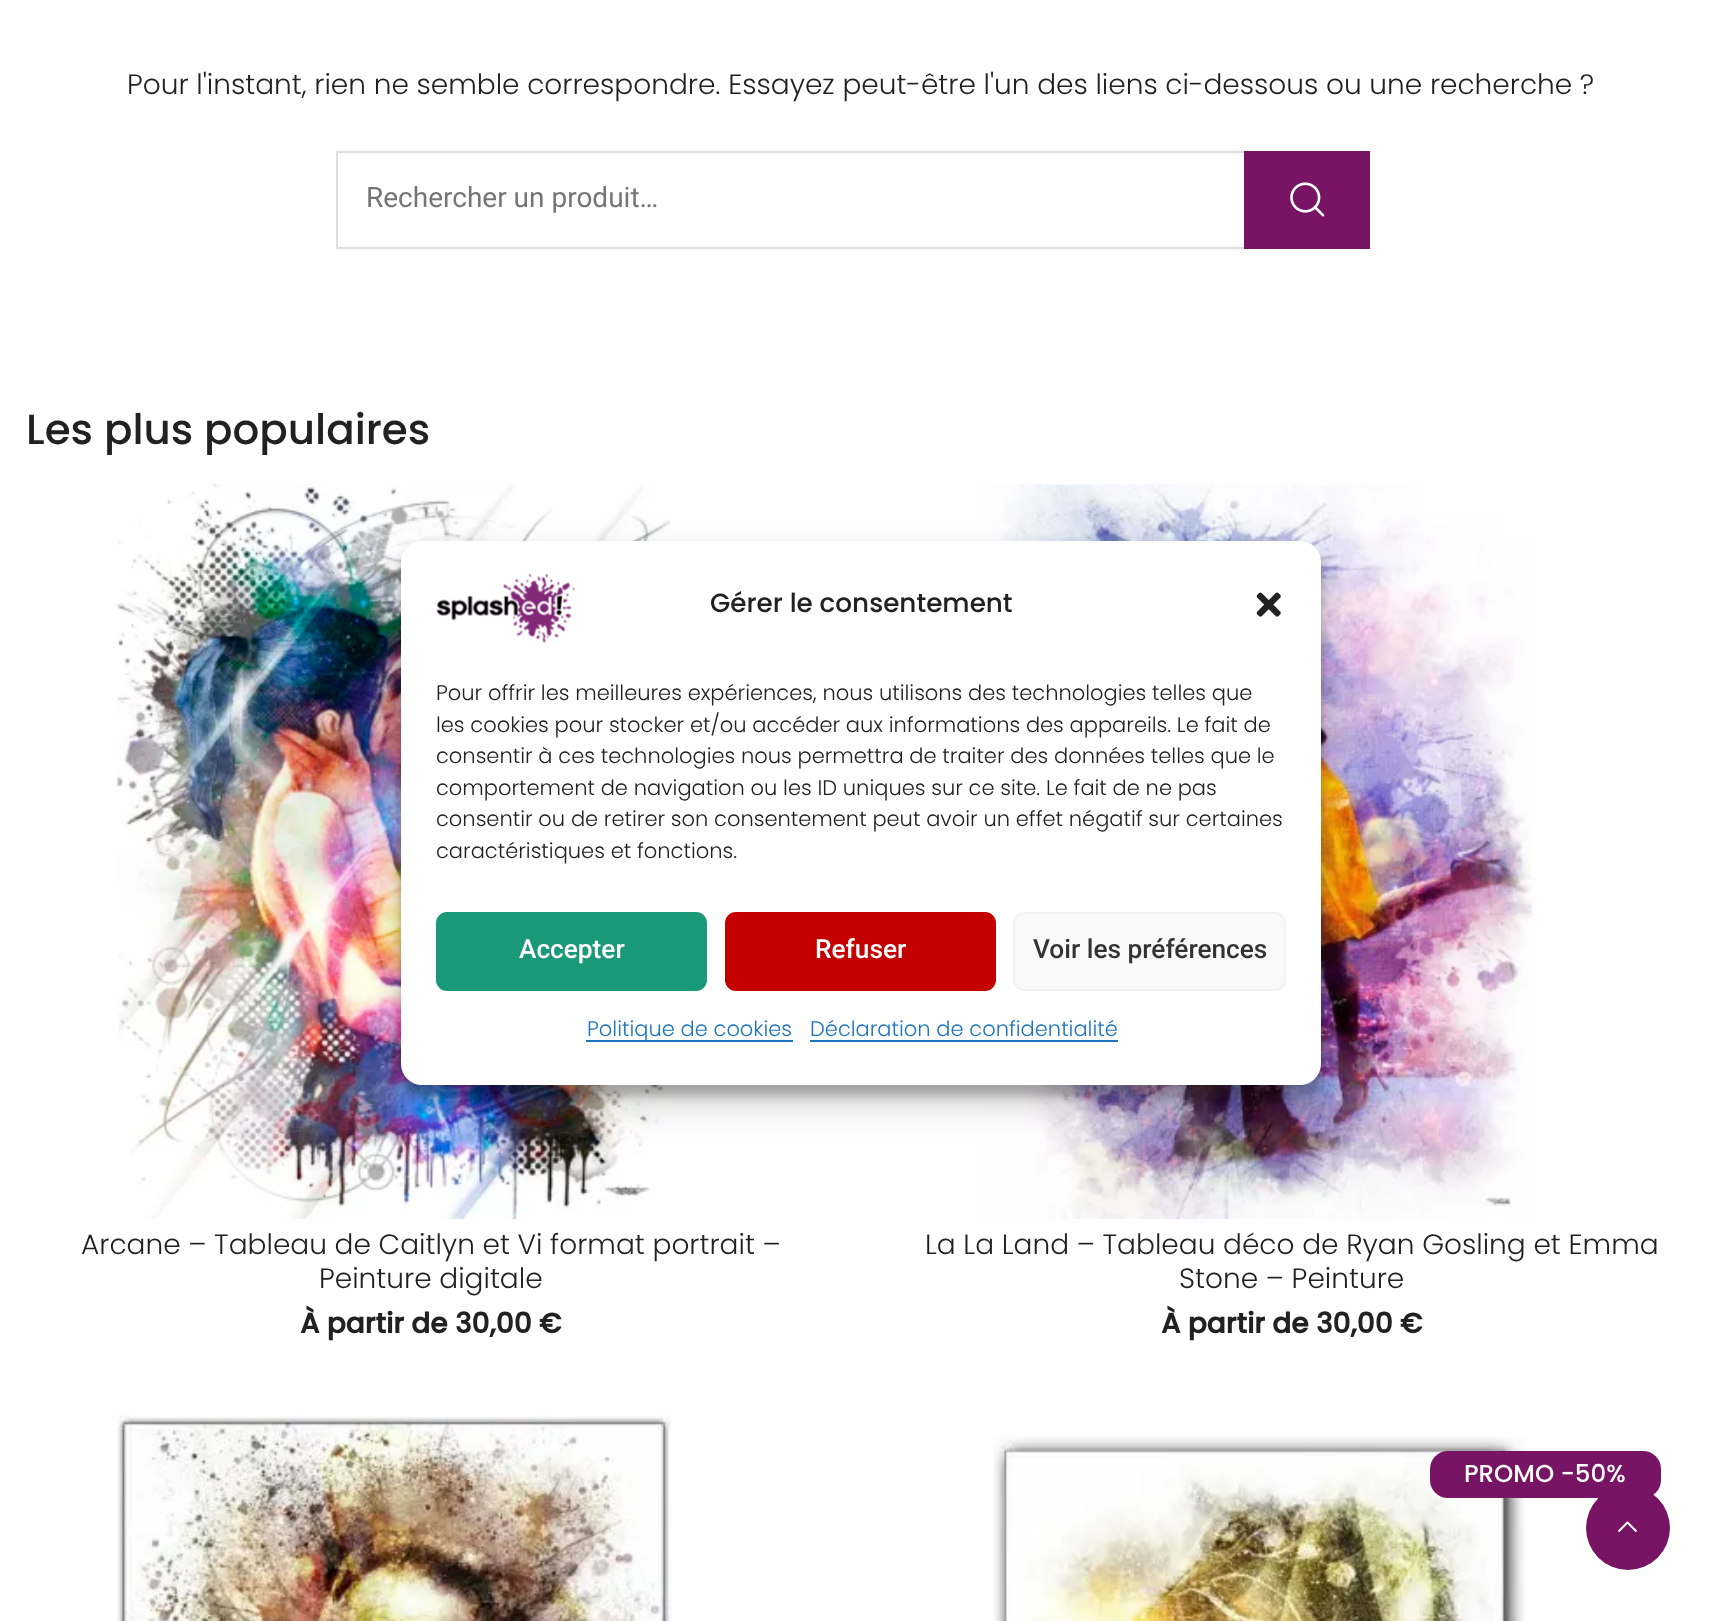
(async () => {
  const canvas = document.querySelector("canvas");
  canvas.width = 1721;
  canvas.height = 1621;
  const ctx = canvas.getContext("2d");
  ctx.miterLimit = 4;
  ctx.fontKerning = "normal";
  async function loadImage(src) {
    const img = new Image();
    img.src = src;
    await img.decode();
    return img;
  }
  let path;

  ctx.fillStyle = "#ffffff";
  ctx.fillRect(0, 0, 1721, 1621);
  ctx.strokeStyle = "#dddddd";
  ctx.lineWidth = 2;
  ctx.strokeRect(337, 152, 915, 96);
  ctx.fillStyle = "#781464";
  ctx.fillRect(1244, 151, 126, 98);
  ctx.drawImage(await loadImage("img/1.png"), 1290, 182, 35, 35);
  ctx.drawImage(await loadImage("img/2.png"), 117, 484, 554, 735);
  ctx.drawImage(await loadImage("img/3.png"), 980, 484, 554, 735);
  ctx.drawImage(await loadImage("img/4.png"), 117, 1415, 554, 206);
  ctx.drawImage(await loadImage("img/5.png"), 993, 1436, 533, 185);
  ctx.beginPath();
  ctx.roundRect(1430, 1451, 231, 47, 18);
  ctx.fill();
  ctx.beginPath();
  ctx.arc(1628, 1528, 42, 0, Math.PI * 2);
  ctx.fill();
  path = new Path2D("M1618.5 1531.5L1627.5 1522.5L1636.5 1531.5");
  ctx.strokeStyle = "#ffffff";
  ctx.lineJoin = "round";
  ctx.stroke(path);
  ctx.fillStyle = "rgba(0, 0, 0, 0.23)";
  ctx.filter = "blur(5px)";
  ctx.beginPath();
  ctx.roundRect(401, 551, 920, 545, 21);
  ctx.fill();
  ctx.filter = "none";
  ctx.fillStyle = "rgba(0, 0, 0, 0.19)";
  ctx.filter = "blur(17.5px)";
  ctx.beginPath();
  ctx.roundRect(401, 558, 920, 545, 21);
  ctx.fill();
  ctx.filter = "none";
  ctx.fillStyle = "#ffffff";
  ctx.beginPath();
  ctx.roundRect(401, 541, 920, 544, 21);
  ctx.fill();
  ctx.drawImage(await loadImage("img/6.png"), 436, 573, 139, 70);
  ctx.drawImage(await loadImage("img/7.png"), 1256, 592, 25, 25);
  ctx.fillStyle = "#1a997a";
  ctx.beginPath();
  ctx.roundRect(437, 913, 269, 77, 10);
  ctx.fill();
  ctx.strokeStyle = "#1a997a";
  ctx.lineJoin = "miter";
  ctx.stroke();
  ctx.fillStyle = "#c40101";
  ctx.beginPath();
  ctx.roundRect(726, 913, 269, 77, 10);
  ctx.fill();
  ctx.strokeStyle = "#c40101";
  ctx.stroke();
  ctx.fillStyle = "#f9f9f9";
  ctx.beginPath();
  ctx.roundRect(1014, 913, 271, 77, 10);
  ctx.fill();
  ctx.strokeStyle = "#f2f2f2";
  ctx.stroke();
  ctx.fillStyle = "#1e73be";
  ctx.fillRect(586, 1040, 207, 2);
  ctx.fillRect(810, 1040, 308, 2);
  ctx.font = "300 28px Poppins";
  ctx.fillStyle = "#212121";
  ctx.fillText("Pour l'instant, rien ne semble correspondre. Essayez peut-être l'un des liens ci-dessous ou une recherche ?", 127, 94);
  ctx.font = "28px Roboto";
  ctx.fillStyle = "#757575";
  ctx.fillText("Rechercher un produit…", 366, 207);
  ctx.font = "500 42px Poppins";
  ctx.fillStyle = "#212121";
  ctx.fillText("Les plus populaires", 26, 444);
  ctx.font = "300 28px Poppins";
  ctx.fillText("Arcane – Tableau de Caitlyn et Vi format portrait –", 81, 1254);
  ctx.fillText("Peinture digitale", 319, 1288);
  ctx.font = "bold 28px Poppins";
  ctx.fillText("À partir de 30,00 €", 300, 1333);
  ctx.font = "300 28px Poppins";
  ctx.fillText("La La Land – Tableau déco de Ryan Gosling et Emma", 925, 1254);
  ctx.fillText("Stone – Peinture", 1179, 1288);
  ctx.font = "bold 28px Poppins";
  ctx.fillText("À partir de 30,00 €", 1161, 1333);
  ctx.font = "500 24.5px Poppins";
  ctx.fillStyle = "#ffffff";
  ctx.fillText("PROMO -50%", 1464, 1482);
  ctx.font = "500 26.25px Poppins";
  ctx.fillStyle = "#212121";
  ctx.fillText("Gérer le consentement", 710, 612);
  ctx.font = "300 21px Poppins";
  for (const [text, x, y] of [
    ["Pour offrir les meilleures expériences, nous utilisons des technologies telles que", 436, 700],
    ["les cookies pour stocker et/ou accéder aux informations des appareils. Le fait de", 436, 732],
    ["consentir à ces technologies nous permettra de traiter des données telles que le", 436, 763],
    ["comportement de navigation ou les ID uniques sur ce site. Le fait de ne pas", 436, 795],
    ["consentir ou de retirer son consentement peut avoir un effet négatif sur certaines", 436, 826],
    ["caractéristiques et fonctions.", 436, 858],
  ]) {
    ctx.fillText(text, x, y);
  }
  ctx.font = "500 26.25px Roboto";
  ctx.fillStyle = "#ffffff";
  ctx.fillText("Accepter", 519, 958);
  ctx.fillText("Refuser", 815, 958);
  ctx.fillStyle = "#333333";
  ctx.fillText("Voir les préférences", 1033, 958);
  ctx.font = "300 21px Poppins";
  ctx.fillStyle = "#1e73be";
  ctx.fillText("Politique de cookies", 587, 1036);
  ctx.fillText("Déclaration de confidentialité", 810, 1036);
})();
